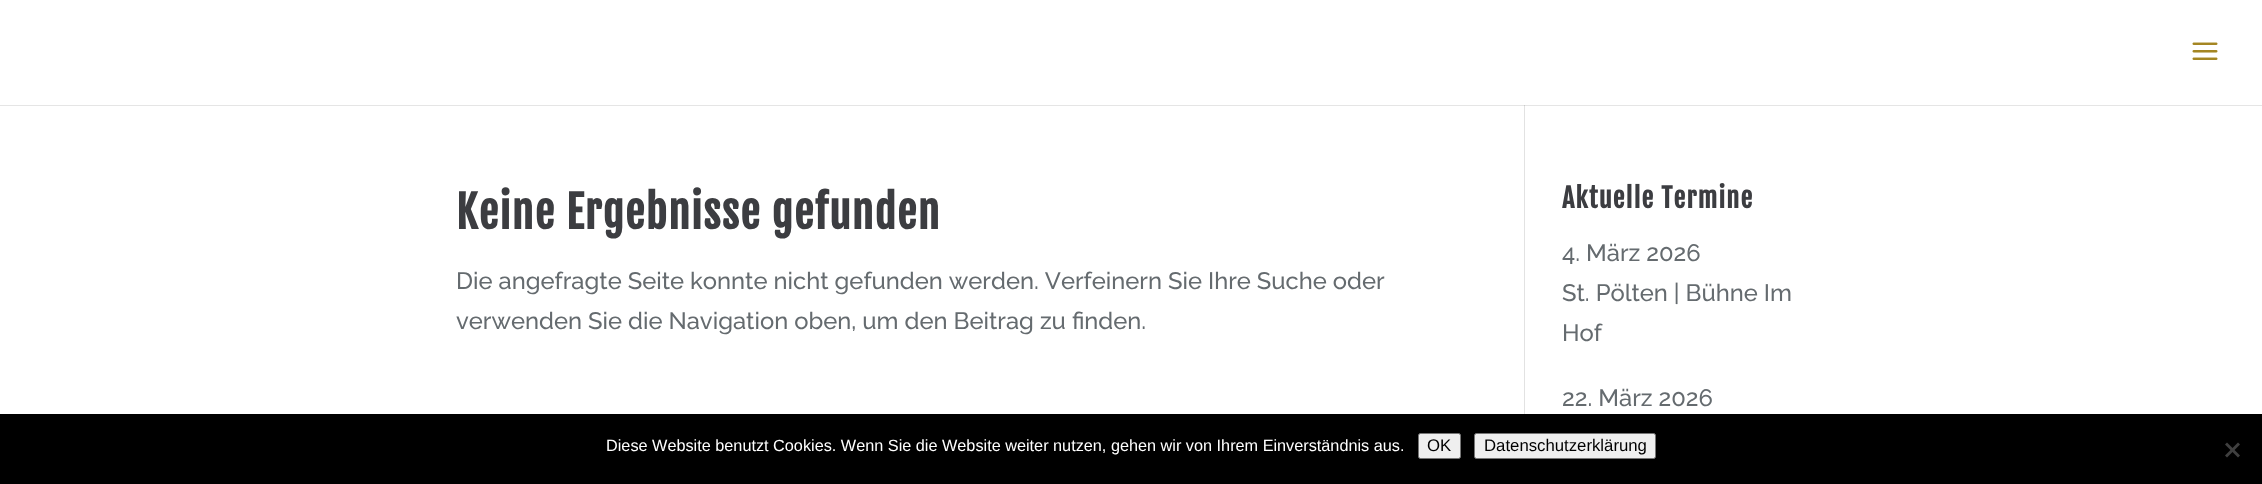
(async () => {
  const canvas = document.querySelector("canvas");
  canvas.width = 2262;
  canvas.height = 484;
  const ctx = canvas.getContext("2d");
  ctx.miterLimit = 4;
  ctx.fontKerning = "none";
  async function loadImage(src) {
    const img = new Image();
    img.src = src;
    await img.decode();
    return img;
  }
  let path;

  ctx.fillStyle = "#ffffff";
  ctx.fillRect(0, 0, 2262, 484);
  ctx.fillStyle = "#e2e2e2";
  ctx.fillRect(1524, 105, 1, 309);
  ctx.fillStyle = "rgba(0, 0, 0, 0.1)";
  path = new Path2D("M0 105V106H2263V1H2262V105Z");
  ctx.fill(path);
  ctx.drawImage(await loadImage("img/1.png"), 2192, 42, 26, 18);
  ctx.fillStyle = "#000000";
  ctx.fillRect(0, 414, 2262, 70);
  ctx.fillStyle = "#efefef";
  ctx.beginPath();
  ctx.roundRect(1418.5, 433.5, 42, 25, 2);
  ctx.fill();
  ctx.strokeStyle = "#767676";
  ctx.stroke();
  ctx.beginPath();
  ctx.roundRect(1474.5, 433.5, 181, 25, 2);
  ctx.fill();
  ctx.stroke();
  ctx.fillStyle = "#404040";
  path = new Path2D("M2238 442.5L2240 444.5L2227 457.5L2225 455.5Z");
  ctx.fill(path);
  path = new Path2D("M2225 444.5L2227 442.5L2240 455.5L2238 457.5Z");
  ctx.fill(path);
  ctx.letterSpacing = "1.25px";
  ctx.font = "bold 43.75px Fjalla One";
  ctx.fillStyle = "#3c3d41";
  ctx.fillText("Keine Ergebnisse gefunden", 456, 229);
  ctx.letterSpacing = "0px";
  ctx.font = "500 23.75px Raleway";
  ctx.fillStyle = "#656b6f";
  ctx.fillText("Die angefragte Seite konnte nicht gefunden werden. Verfeinern", 456, 289);
  ctx.fillText("Sie Ihre Suche oder", 1168, 289);
  ctx.fillText("verwenden Sie die Navigation oben, um den Beitrag zu finden.", 456, 329);
  ctx.letterSpacing = "1.25px";
  ctx.font = "bold 26.25px Fjalla One";
  ctx.fillStyle = "#3c3d41";
  ctx.fillText("Aktuelle Termine", 1562, 208);
  ctx.letterSpacing = "0px";
  ctx.font = "500 23.75px Raleway";
  ctx.fillStyle = "#656b6f";
  for (const [text, x, y] of [
    ["4. März 2026", 1562, 261],
    ["St. Pölten | Bühne Im", 1562, 301],
    ["Hof", 1562, 341],
    ["22. März 2026", 1562, 406],
  ]) {
    ctx.fillText(text, x, y);
  }
  ctx.font = "16.25px Liberation Sans";
  ctx.fillStyle = "#ffffff";
  ctx.fillText("Diese Website benutzt Cookies. Wenn Sie die Website weiter nutzen, gehen wir von Ihrem Einverständnis aus.", 606, 451);
  ctx.font = "16.75px Liberation Sans";
  ctx.fillStyle = "#000000";
  ctx.fillText("OK", 1427, 451);
  ctx.fillText("Datenschutzerklärung", 1484, 451);
})();
